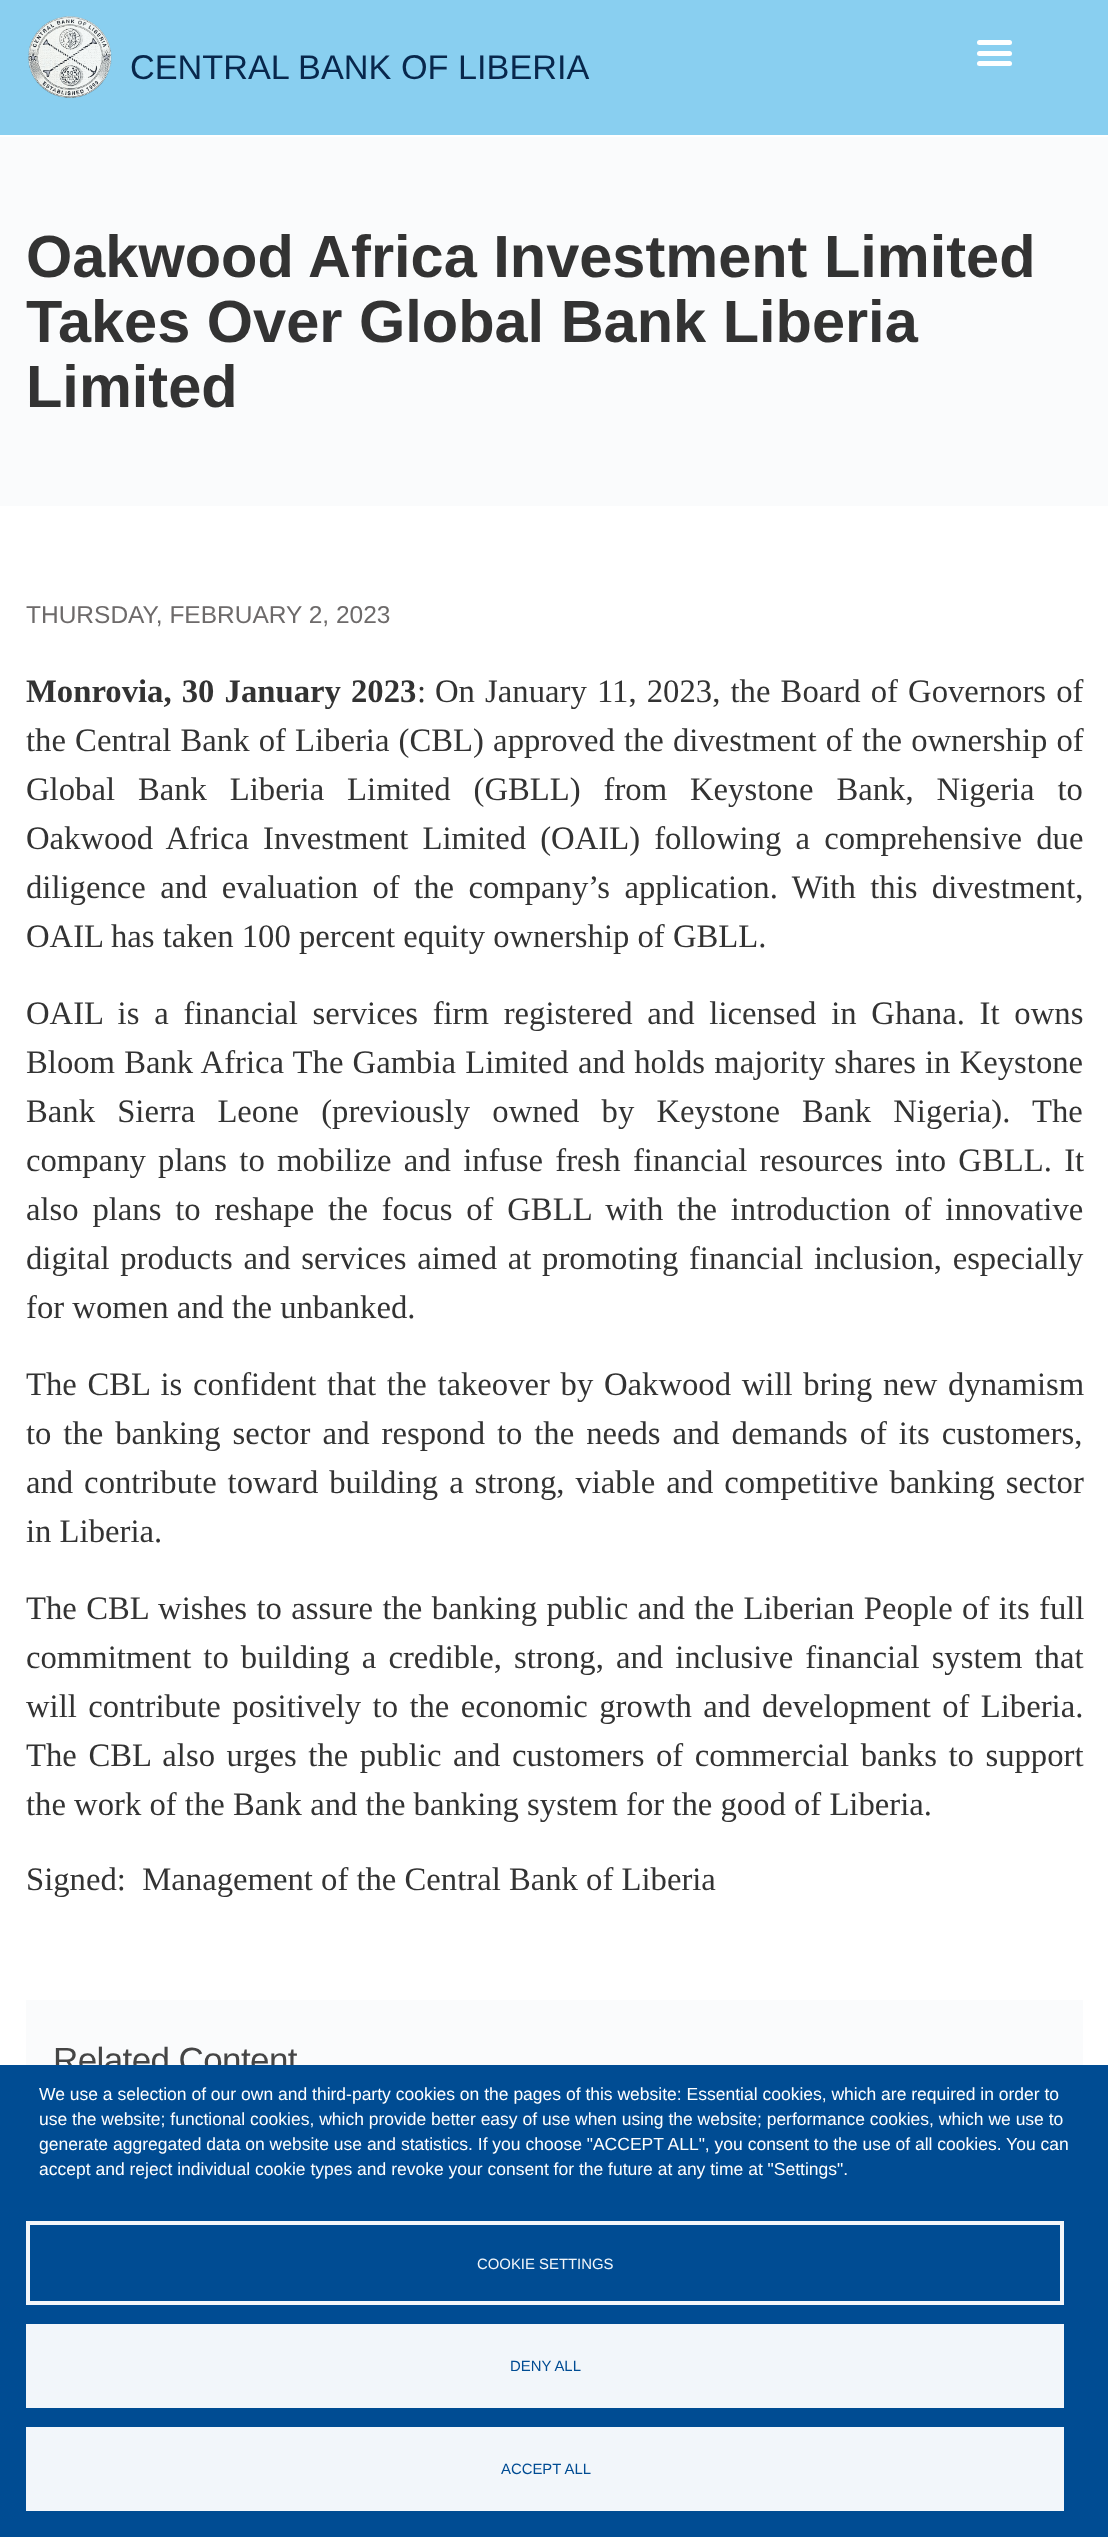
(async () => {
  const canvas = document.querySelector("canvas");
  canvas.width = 1108;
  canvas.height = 2537;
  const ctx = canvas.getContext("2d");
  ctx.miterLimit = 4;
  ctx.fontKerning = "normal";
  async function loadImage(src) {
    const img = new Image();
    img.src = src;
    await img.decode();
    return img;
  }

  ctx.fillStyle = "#ffffff";
  ctx.fillRect(0, 0, 1108, 2537);
  ctx.fillStyle = "#89cff0";
  ctx.fillRect(0, 0, 1108, 135);
  ctx.drawImage(await loadImage("img/1.png"), 28, 16, 84, 82);
  ctx.fillStyle = "#ffffff";
  ctx.beginPath();
  ctx.roundRect(977, 40, 35, 5, 2.5);
  ctx.fill();
  ctx.beginPath();
  ctx.roundRect(977, 51, 35, 5, 2.5);
  ctx.fill();
  ctx.beginPath();
  ctx.roundRect(977, 61, 35, 5, 2.5);
  ctx.fill();
  ctx.fillStyle = "#fafbfc";
  ctx.fillRect(0, 137, 1108, 369);
  ctx.fillRect(26, 2000, 1057, 65);
  ctx.font = "34.25px Liberation Sans";
  ctx.fillStyle = "#08274c";
  ctx.fillText("CENTRAL BANK OF LIBERIA", 130, 79);
  ctx.font = "bold 59.5px Liberation Sans";
  ctx.fillStyle = "#333333";
  for (const [text, x, y] of [
    ["Oakwood Africa Investment Limited", 26, 277],
    ["Takes Over Global Bank Liberia", 26, 342],
    ["Limited", 26, 407],
  ]) {
    ctx.fillText(text, x, y);
  }
  ctx.font = "24.5px Liberation Sans";
  ctx.fillStyle = "#6d6a6a";
  ctx.fillText("THURSDAY, FEBRUARY 2, 2023", 26, 623);
  ctx.wordSpacing = "2px";
  ctx.font = "bold 32.7px Liberation Serif";
  ctx.fillStyle = "#333333";
  ctx.fillText("Monrovia, 30 January 2023", 26, 702);
  ctx.wordSpacing = "0px";
  ctx.font = "32.7px Liberation Serif";
  ctx.fillText(":", 417, 702);
  ctx.wordSpacing = "2px";
  ctx.fillText("On January 11, 2023, the Board of Governors of", 435, 702);
  ctx.wordSpacing = "1px";
  ctx.fillText("the Central Bank of Liberia (CBL) approved the divestment of the ownership of", 26, 751);
  ctx.wordSpacing = "14.75px";
  ctx.fillText("Global Bank Liberia Limited (GBLL) from Keystone Bank, Nigeria to", 26, 800);
  ctx.wordSpacing = "6px";
  ctx.fillText("Oakwood Africa Investment Limited (OAIL) following a comprehensive due", 26, 849);
  ctx.wordSpacing = "6.25px";
  ctx.fillText("diligence and evaluation of the company’s application. With this divestment,", 26, 898);
  ctx.wordSpacing = "0px";
  ctx.fillText("OAIL has taken 100 percent equity ownership of GBLL.", 26, 947);
  ctx.wordSpacing = "6.6px";
  ctx.fillText("OAIL is a financial services firm registered and licensed in Ghana. It owns", 26, 1024);
  ctx.wordSpacing = "1px";
  ctx.fillText("Bloom Bank Africa The Gambia Limited and holds majority shares in Keystone", 26, 1073);
  ctx.wordSpacing = "14px";
  ctx.fillText("Bank Sierra Leone (previously owned by Keystone Bank Nigeria). The", 26, 1122);
  ctx.wordSpacing = "4.1px";
  ctx.fillText("company plans to mobilize and infuse fresh financial resources into GBLL. It", 26, 1171);
  ctx.wordSpacing = "5.6px";
  ctx.fillText("also plans to reshape the focus of GBLL with the introduction of innovative", 26, 1220);
  ctx.wordSpacing = "2.5px";
  ctx.fillText("digital products and services aimed at promoting financial inclusion, especially", 26, 1269);
  ctx.wordSpacing = "0px";
  ctx.fillText("for women and the unbanked.", 26, 1318);
  ctx.wordSpacing = "2.5px";
  ctx.fillText("The CBL is confident that the takeover by Oakwood will bring new dynamism", 26, 1395);
  ctx.wordSpacing = "3.75px";
  ctx.fillText("to the banking sector and respond to the needs and demands of its customers,", 26, 1444);
  ctx.wordSpacing = "2.75px";
  ctx.fillText("and contribute toward building a strong, viable and competitive banking sector", 26, 1493);
  ctx.wordSpacing = "0px";
  ctx.fillText("in Liberia.", 26, 1542);
  ctx.wordSpacing = "1.25px";
  ctx.fillText("The CBL wishes to assure the banking public and the Liberian People of its full", 26, 1619);
  ctx.wordSpacing = "3.9px";
  ctx.fillText("commitment to building a credible, strong, and inclusive financial system that", 26, 1668);
  ctx.wordSpacing = "3.25px";
  ctx.fillText("will contribute positively to the economic growth and development of Liberia.", 26, 1717);
  ctx.wordSpacing = "3.4px";
  ctx.fillText("The CBL also urges the public and customers of commercial banks to support", 26, 1766);
  ctx.wordSpacing = "0px";
  ctx.fillText("the work of the Bank and the banking system for the good of Liberia.", 26, 1815);
  ctx.fillText("Signed:  Management of the Central Bank of Liberia", 26, 1890);
  ctx.letterSpacing = "-0.6px";
  ctx.font = "35px Liberation Sans";
  ctx.fillStyle = "#454545";
  ctx.fillText("Related Content", 53, 2072);
  ctx.fillStyle = "#004c93";
  ctx.fillRect(0, 2065, 1108, 472);
  ctx.letterSpacing = "0px";
  ctx.font = "17.5px Liberation Sans";
  ctx.fillStyle = "#ffffff";
  for (const [text, x, y] of [
    ["We use a selection of our own and third-party cookies on the pages of this website: Essential cookies, which are required in order to", 39, 2100],
    ["use the website; functional cookies, which provide better easy of use when using the website; performance cookies, which we use to", 39, 2125],
    ["generate aggregated data on website use and statistics. If you choose \"ACCEPT ALL\", you consent to the use of all cookies. You can", 39, 2150],
    ["accept and reject individual cookie types and revoke your consent for the future at any time at \"Settings\".", 39, 2175],
  ]) {
    ctx.fillText(text, x, y);
  }
  ctx.strokeStyle = "#f2f6fa";
  ctx.lineWidth = 4;
  ctx.strokeRect(28, 2223, 1034, 80);
  ctx.font = "14.9px Liberation Sans";
  ctx.fillStyle = "#f2f6fa";
  ctx.fillText("COOKIE SETTINGS", 477, 2269);
  ctx.fillRect(26, 2324, 1038, 84);
  ctx.fillStyle = "#004c93";
  ctx.fillText("DENY ALL", 510, 2371);
  ctx.fillStyle = "#f2f6fa";
  ctx.fillRect(26, 2427, 1038, 84);
  ctx.fillStyle = "#004c93";
  ctx.fillText("ACCEPT ALL", 501, 2474);
})();
